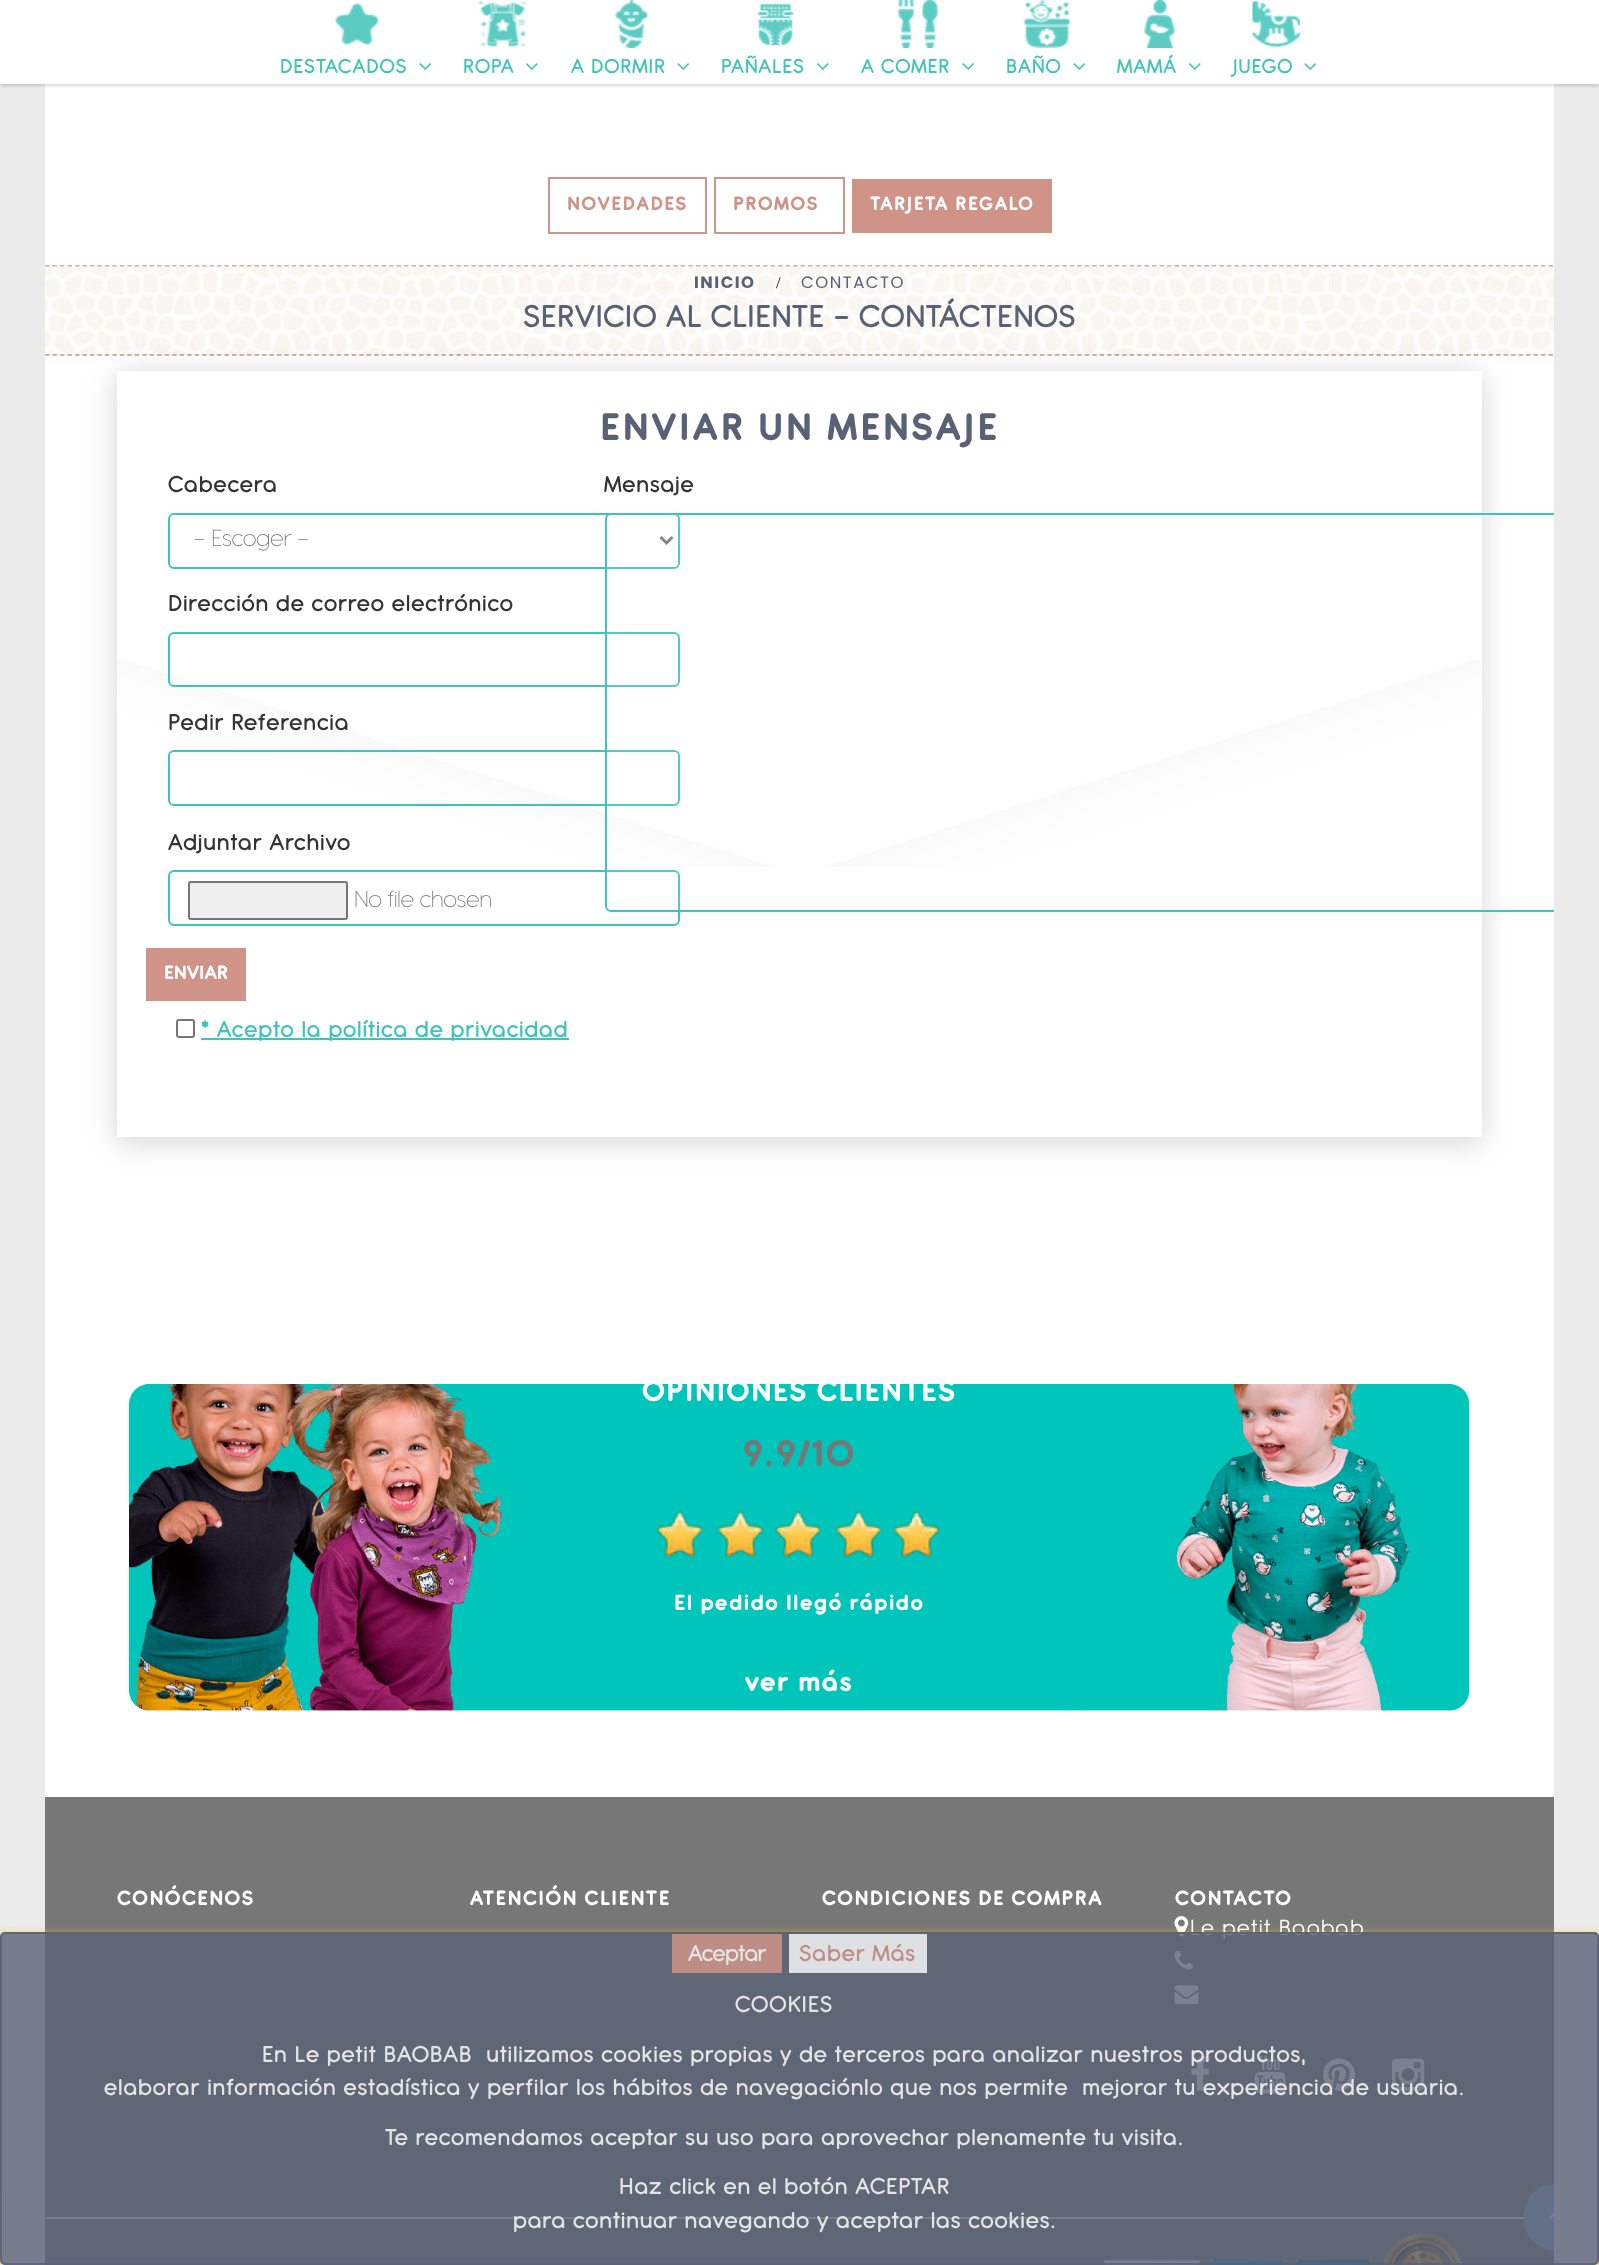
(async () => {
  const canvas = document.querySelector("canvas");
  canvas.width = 1599;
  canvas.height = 2265;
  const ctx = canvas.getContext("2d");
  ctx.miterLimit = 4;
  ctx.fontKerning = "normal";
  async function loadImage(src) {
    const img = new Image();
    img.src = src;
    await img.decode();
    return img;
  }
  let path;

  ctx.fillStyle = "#ebebeb";
  ctx.fillRect(0, 0, 1599, 2265);
  ctx.fillStyle = "#ffffff";
  ctx.fillRect(45, 84, 1509, 1713);
  path = new Path2D("M45 266H1554");
  ctx.strokeStyle = "#d09388";
  ctx.lineWidth = 1.5;
  ctx.setLineDash([4.5, 2.98]);
  ctx.stroke(path);
  ctx.fillStyle = "rgba(0, 0, 0, 0.15)";
  ctx.filter = "blur(1.5px)";
  ctx.beginPath();
  ctx.rect(0, 2, 1599, 84);
  ctx.fill();
  ctx.filter = "none";
  ctx.fillStyle = "#ffffff";
  ctx.fillRect(0, 0, 1599, 84);
  ctx.drawImage(await loadImage("img/1.png"), 335, 2, 44, 44);
  ctx.drawImage(await loadImage("img/2.png"), 419, 63, 12, 7);
  ctx.drawImage(await loadImage("img/3.png"), 478, 1, 49, 46);
  ctx.drawImage(await loadImage("img/4.png"), 526, 63, 12, 7);
  ctx.drawImage(await loadImage("img/5.png"), 614, 0, 35, 48);
  ctx.drawImage(await loadImage("img/2.png"), 677, 63, 12, 7);
  ctx.drawImage(await loadImage("img/6.png"), 756, 2, 39, 44);
  ctx.drawImage(await loadImage("img/4.png"), 817, 63, 12, 7);
  ctx.drawImage(await loadImage("img/7.png"), 897, 0, 42, 48);
  ctx.drawImage(await loadImage("img/2.png"), 962, 63, 12, 7);
  ctx.drawImage(await loadImage("img/8.png"), 1023, 0, 48, 48);
  ctx.drawImage(await loadImage("img/2.png"), 1073, 63, 12, 7);
  ctx.drawImage(await loadImage("img/9.png"), 1143, 0, 33, 48);
  ctx.drawImage(await loadImage("img/4.png"), 1189, 63, 12, 7);
  ctx.drawImage(await loadImage("img/10.png"), 1252, 0, 48, 47);
  ctx.drawImage(await loadImage("img/2.png"), 1304, 63, 12, 7);
  ctx.lineWidth = 2;
  ctx.setLineDash([]);
  ctx.strokeRect(549, 178, 157, 55);
  ctx.strokeRect(715, 178, 129, 55);
  ctx.fillStyle = "#d09388";
  ctx.fillRect(852, 179, 200, 54);
  ctx.fillStyle = "#777777";
  ctx.fillRect(45, 1797, 1509, 468);
  ctx.drawImage(await loadImage("img/15.png"), 1174, 1916, 15, 21);
  ctx.drawImage(await loadImage("img/16.png"), 1174, 1950, 20, 20);
  ctx.drawImage(await loadImage("img/17.png"), 1174, 1985, 25, 20);
  ctx.drawImage(await loadImage("img/18.png"), 1191, 2055, 19, 36);
  ctx.drawImage(await loadImage("img/19.png"), 1254, 2055, 32, 39);
  ctx.drawImage(await loadImage("img/20.png"), 1323, 2058, 33, 33);
  ctx.drawImage(await loadImage("img/21.png"), 1392, 2058, 33, 33);
  ctx.fillStyle = "#eeeeee";
  ctx.fillRect(45, 2217, 1480, 2);
  ctx.fillStyle = "#91a8d0";
  ctx.beginPath();
  ctx.roundRect(1524, 2184, 30, 66, [33, 0, 0, 33]);
  ctx.fill();
  ctx.drawImage(await loadImage("img/22.png"), 1549, 2212, 5, 7);
  ctx.drawImage(await loadImage("img/23.png"), 1103, 2233, 361, 32);
  ctx.save();
  path = new Path2D("M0 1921H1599V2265H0ZM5 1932H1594C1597 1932 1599 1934 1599 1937V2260C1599 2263 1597 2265 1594 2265H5C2 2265 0 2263 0 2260V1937C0 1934 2 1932 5 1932Z");
  ctx.clip(path, "evenodd");
  ctx.fillStyle = "rgba(255, 204, 1, 0.8)";
  ctx.filter = "blur(4px)";
  ctx.beginPath();
  ctx.roundRect(0, 1934, 1599, 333, 5);
  ctx.fill();
  ctx.filter = "none";
  ctx.restore();
  ctx.drawImage(await loadImage("img/11.png"), 45, 266, 1509, 89);
  path = new Path2D("M45 355H1554");
  ctx.lineWidth = 1.5;
  ctx.setLineDash([4.5, 2.98]);
  ctx.stroke(path);
  ctx.save();
  path = new Path2D("M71 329H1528V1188H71ZM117 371H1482V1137H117Z");
  ctx.clip(path, "evenodd");
  ctx.fillStyle = "rgba(0, 0, 0, 0.17)";
  ctx.filter = "blur(15px)";
  ctx.beginPath();
  ctx.rect(117, 375, 1365, 767);
  ctx.fill();
  ctx.filter = "none";
  ctx.restore();
  ctx.drawImage(await loadImage("img/12.png"), 117, 659, 1365, 208);
  ctx.beginPath();
  ctx.roundRect(169, 514, 510, 54, 5);
  ctx.strokeStyle = "#40c4b9";
  ctx.lineWidth = 2;
  ctx.setLineDash([]);
  ctx.stroke();
  path = new Path2D("M660.5 537L666.5 543L672.5 537");
  ctx.strokeStyle = "#777777";
  ctx.lineWidth = 3;
  ctx.stroke(path);
  ctx.beginPath();
  ctx.roundRect(169, 633, 510, 53, 5);
  ctx.strokeStyle = "#40c4b9";
  ctx.lineWidth = 2;
  ctx.stroke();
  ctx.beginPath();
  ctx.roundRect(169, 751, 510, 54, 5);
  ctx.stroke();
  ctx.beginPath();
  ctx.roundRect(169, 871, 510, 54, 5);
  ctx.stroke();
  ctx.fillStyle = "#efefef";
  ctx.beginPath();
  ctx.roundRect(189, 882, 158, 37, 2);
  ctx.fill();
  ctx.strokeStyle = "#767676";
  ctx.stroke();
  ctx.fillStyle = "rgba(255, 255, 255, 0.11)";
  ctx.beginPath();
  ctx.roundRect(605, 513, 949, 399, [6, 0, 0, 6]);
  ctx.fill();
  ctx.save();
  ctx.beginPath();
  ctx.rect(45, 0, 1509, 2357);
  ctx.clip();
  ctx.beginPath();
  ctx.roundRect(606, 514, 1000, 397, 5);
  ctx.strokeStyle = "#40c4b9";
  ctx.stroke();
  ctx.restore();
  ctx.fillStyle = "#d09388";
  ctx.fillRect(146, 948, 100, 53);
  ctx.beginPath();
  ctx.roundRect(177, 1020, 17, 17, 2);
  ctx.stroke();
  ctx.fillStyle = "#40c4b9";
  ctx.fillRect(201, 1038, 368, 2);
  ctx.drawImage(await loadImage("img/13.png"), 129, 1384, 1341, 327);
  ctx.drawImage(await loadImage("img/14.png"), 657, 1511, 283, 47);
  ctx.letterSpacing = "1.5px";
  ctx.font = "bold 21px 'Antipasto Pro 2'";
  for (const [text, x, y] of [
    ["DESTACADOS", 280, 73],
    ["ROPA", 463, 73],
    ["A DORMIR", 571, 73],
    ["PAÑALES", 721, 73],
    ["A COMER", 861, 73],
    ["BAÑO", 1006, 73],
    ["MAMÁ", 1117, 73],
    ["JUEGO", 1233, 73],
  ]) {
    ctx.fillText(text, x, y);
  }
  ctx.font = "bold 21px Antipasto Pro";
  ctx.fillStyle = "#d09388";
  ctx.fillText("NOVEDADES", 567, 210);
  ctx.fillText("PROMOS", 733, 210);
  ctx.fillStyle = "#ffffff";
  ctx.fillText("TARJETA REGALO", 870, 210);
  ctx.font = "bold 16.5px Poppins";
  ctx.fillStyle = "#596176";
  ctx.fillText("INICIO", 694, 288);
  ctx.font = "16.5px Liberation Serif";
  ctx.fillStyle = "#000000";
  ctx.fillText("/", 776, 288);
  ctx.font = "16.5px Poppins";
  ctx.fillStyle = "#596176";
  ctx.fillText("CONTACTO", 801, 288);
  ctx.font = "bold 33px 'Antipasto Pro 2'";
  ctx.fillText("SERVICIO AL CLIENTE - CONTÁCTENOS", 523, 327);
  ctx.letterSpacing = "3px";
  ctx.font = "bold 42px Antipasto Pro";
  ctx.fillText("ENVIAR UN MENSAJE", 600, 440);
  ctx.letterSpacing = "1.5px";
  ctx.font = "bold 24px 'Antipasto Pro 2'";
  ctx.fillStyle = "#333333";
  ctx.fillText("Cabecera", 168, 492);
  ctx.letterSpacing = "0px";
  ctx.font = "200 25.5px Antipasto Pro";
  ctx.fillStyle = "#777777";
  ctx.fillText("- Escoger -", 194, 546);
  ctx.letterSpacing = "1.5px";
  ctx.font = "bold 24px 'Antipasto Pro 2'";
  ctx.fillStyle = "#333333";
  for (const [text, x, y] of [
    ["Dirección de correo electrónico", 168, 611],
    ["Pedir Referencia", 168, 730],
    ["Adjuntar Archivo", 168, 850],
  ]) {
    ctx.fillText(text, x, y);
  }
  ctx.letterSpacing = "0px";
  ctx.font = "200 25.5px Antipasto Pro";
  ctx.fillStyle = "#777777";
  ctx.fillText("No file chosen", 354, 907);
  ctx.letterSpacing = "1.5px";
  ctx.font = "bold 24px 'Antipasto Pro 2'";
  ctx.fillStyle = "#333333";
  ctx.fillText("Mensaje", 604, 492);
  ctx.letterSpacing = "0px";
  ctx.font = "bold 21px Antipasto Pro";
  ctx.fillStyle = "#ffffff";
  ctx.fillText("ENVIAR", 164, 979);
  ctx.letterSpacing = "1.5px";
  ctx.font = "bold 24px 'Antipasto Pro 2'";
  ctx.fillStyle = "#40c4b9";
  ctx.fillText("* Acepto la política de privacidad", 201, 1037);
  ctx.font = "bold 33px Antipasto Pro";
  ctx.fillStyle = "#ffffff";
  ctx.fillText("OPINIONES CLIENTES", 642, 1401);
  ctx.font = "bold 40.5px Antipasto Pro";
  ctx.fillStyle = "#777777";
  ctx.fillText("9.9/10", 743, 1466);
  ctx.font = "bold 24px Antipasto Pro";
  ctx.fillStyle = "#ffffff";
  ctx.fillText("El pedido llegó rápido", 674, 1610);
  ctx.font = "bold 30px Antipasto Pro";
  ctx.fillText("ver más", 745, 1691);
  ctx.font = "bold 22.5px Antipasto Pro";
  for (const [text, x, y] of [
    ["CONÓCENOS", 117, 1905],
    ["ATENCIÓN CLIENTE", 470, 1905],
    ["CONDICIONES DE COMPRA", 822, 1905],
    ["CONTACTO", 1175, 1905],
  ]) {
    ctx.fillText(text, x, y);
  }
  ctx.font = "24px Antipasto Pro";
  ctx.fillText("Le petit Baobab", 1190, 1935);
  ctx.fillStyle = "rgba(89, 97, 118, 0.8)";
  ctx.beginPath();
  ctx.roundRect(0, 1932, 1599, 333, 5);
  ctx.fill();
  ctx.beginPath();
  ctx.roundRect(1, 1933, 1597, 331, 4);
  ctx.strokeStyle = "rgba(89, 97, 118, 0.8)";
  ctx.stroke();
  ctx.fillStyle = "#be8d85";
  ctx.fillRect(672, 1934, 110, 39);
  ctx.letterSpacing = "0px";
  ctx.font = "bold 24px 'Antipasto Pro 2'";
  ctx.fillStyle = "#e4e4e4";
  ctx.fillText("Aceptar", 688, 1961);
  ctx.letterSpacing = "1.5px";
  for (const [text, x, y] of [
    ["para continuar navegando y aceptar las cookies.", 513, 2228],
    ["Haz click en el botón ACEPTAR", 619, 2194],
    ["Te recomendamos aceptar su uso para aprovechar plenamente tu visita.", 385, 2145],
    ["lo que nos permite  mejorar tu experiencia de usuaria.", 864, 2095],
    ["elaborar información estadística y perfilar los hábitos de navegación", 104, 2095],
    ["En Le petit BAOBAB  utilizamos cookies propias y de terceros para analizar nuestros productos,", 262, 2062],
    ["COOKIES", 735, 2012],
  ]) {
    ctx.fillText(text, x, y);
  }
  ctx.fillStyle = "rgba(255, 255, 255, 0.8)";
  ctx.fillRect(789, 1934, 138, 39);
  ctx.fillStyle = "#be8d85";
  ctx.fillText("Saber Más", 799, 1961);
})();
